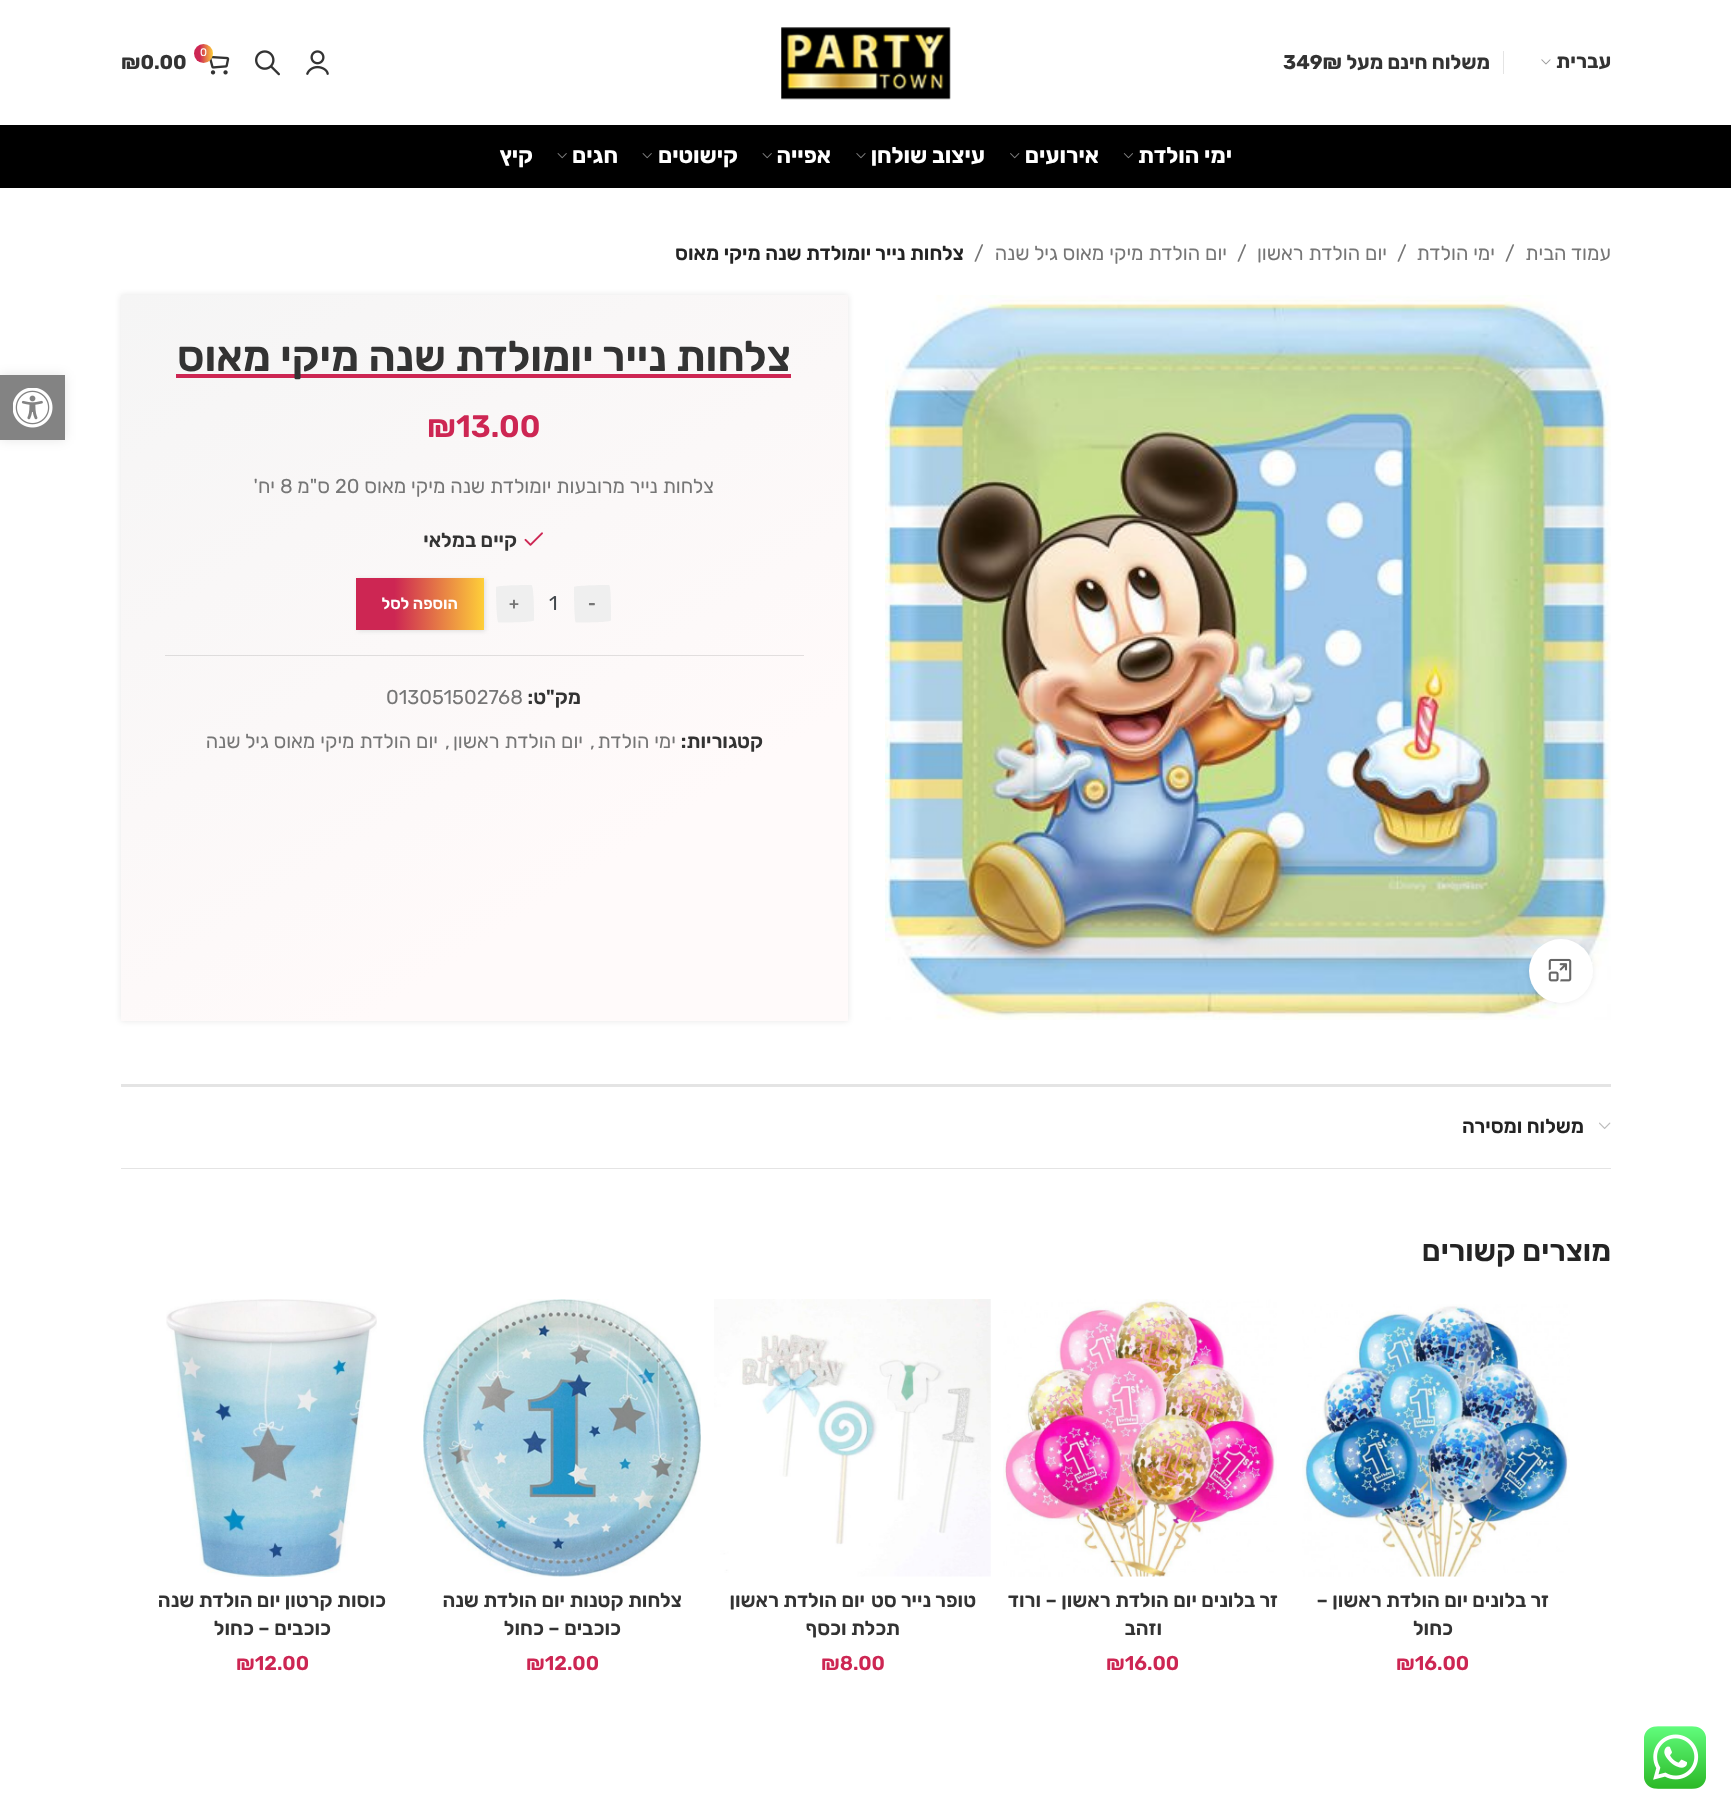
(async () => {
  const canvas = document.querySelector("canvas");
  canvas.width = 1731;
  canvas.height = 1813;
  const ctx = canvas.getContext("2d");
  ctx.miterLimit = 4;
  ctx.fontKerning = "normal";
  async function loadImage(src) {
    const img = new Image();
    img.src = src;
    await img.decode();
    return img;
  }
  let gradient, path;

  ctx.fillStyle = "#ffffff";
  ctx.fillRect(0, 0, 1731, 1813);
  ctx.drawImage(await loadImage("img/1.png"), 1541, 59, 10, 6);
  ctx.fillStyle = "#e4e4e4";
  ctx.fillRect(1503, 51, 1, 23);
  ctx.drawImage(await loadImage("img/2.png"), 781, 27, 170, 73);
  ctx.drawImage(await loadImage("img/3.png"), 306, 50, 23, 25);
  ctx.drawImage(await loadImage("img/4.png"), 255, 50, 25, 26);
  ctx.drawImage(await loadImage("img/5.png"), 209, 55, 21, 20);
  gradient = ctx.createLinearGradient(194, 53, 213, 53);
  gradient.addColorStop(0.3, "#cd2653");
  gradient.addColorStop(1, "#fecf39");
  ctx.fillStyle = gradient;
  ctx.beginPath();
  ctx.arc(203.5, 53.5, 9.5, 0, Math.PI * 2);
  ctx.fill();
  ctx.fillStyle = "#000000";
  ctx.fillRect(0, 125, 1731, 63);
  ctx.drawImage(await loadImage("img/6.png"), 1123, 153, 10, 6);
  ctx.drawImage(await loadImage("img/7.png"), 1010, 153, 10, 6);
  ctx.drawImage(await loadImage("img/8.png"), 856, 153, 10, 6);
  ctx.drawImage(await loadImage("img/9.png"), 762, 153, 10, 6);
  ctx.drawImage(await loadImage("img/9.png"), 642, 153, 10, 6);
  ctx.drawImage(await loadImage("img/9.png"), 557, 153, 10, 6);
  ctx.drawImage(await loadImage("img/10.png"), 885, 295, 726, 725);
  ctx.fillStyle = "rgba(0, 0, 0, 0.08)";
  ctx.filter = "blur(3px)";
  ctx.beginPath();
  ctx.roundRect(1529, 939, 64, 64, 32);
  ctx.fill();
  ctx.filter = "none";
  ctx.fillStyle = "#ffffff";
  ctx.beginPath();
  ctx.arc(1561, 971, 32, 0, Math.PI * 2);
  ctx.fill();
  path = new Path2D("M1592.5 977.5C1588.5 973.5 1588.5 966.5 1592.5 962.5");
  ctx.strokeStyle = "#ffffff";
  ctx.lineWidth = 1.2;
  ctx.stroke(path);
  ctx.drawImage(await loadImage("img/11.png"), 1548, 958, 24, 24);
  ctx.fillStyle = "rgba(0, 0, 0, 0.1)";
  ctx.filter = "blur(3px)";
  ctx.beginPath();
  ctx.rect(121, 295, 727, 726);
  ctx.fill();
  ctx.filter = "none";
  gradient = ctx.createLinearGradient(211, 237, 758, 1079);
  gradient.addColorStop(0, "#f5f5f5");
  gradient.addColorStop(0.74, "#fffafa");
  ctx.fillStyle = gradient;
  ctx.fillRect(121, 295, 727, 726);
  gradient = ctx.createLinearGradient(211, 237, 758, 1079);
  gradient.addColorStop(0, "#dadada");
  gradient.addColorStop(0.74, "#e3dfdf");
  ctx.fillStyle = gradient;
  ctx.fillRect(165, 655, 639, 1);
  ctx.fillStyle = "#cd2653";
  ctx.fillRect(176, 374, 615, 4);
  ctx.drawImage(await loadImage("img/12.png"), 524, 532, 19, 14);
  ctx.fillStyle = "#efefef";
  path = new Path2D("M609 585C610.5 585 611 599 611 616V620.5C611 621.5 597.5 622.5 580 622.5H576C574.5 622.5 574 606.5 574 587C574 586 589.5 585 609 585Z");
  ctx.fill(path);
  path = new Path2D("M531.5 585C533 585 534 599 534 616V620.5C534 621.5 520 622.5 502.5 622.5H498.5C497 622.5 496 606.5 496 587C496 586 512 585 531.5 585Z");
  ctx.fill(path);
  ctx.fillStyle = "#dddddd";
  ctx.filter = "blur(2px)";
  ctx.beginPath();
  ctx.rect(358, 579, 127, 52);
  ctx.fill();
  ctx.filter = "none";
  gradient = ctx.createLinearGradient(356, 604, 484, 604);
  gradient.addColorStop(0.3, "#cd2653");
  gradient.addColorStop(1, "#fecf39");
  ctx.fillStyle = gradient;
  ctx.fillRect(356, 578, 128, 52);
  ctx.fillStyle = "#e4e4e4";
  ctx.fillRect(121, 1084, 1490, 3);
  ctx.fillRect(121, 1168, 1490, 1);
  ctx.drawImage(await loadImage("img/13.png"), 1599, 1122, 12, 7);
  ctx.drawImage(await loadImage("img/14.png"), 1302, 1304, 268, 273);
  ctx.drawImage(await loadImage("img/15.png"), 1003, 1299, 274, 278);
  ctx.drawImage(await loadImage("img/16.png"), 714, 1299, 277, 278);
  ctx.drawImage(await loadImage("img/17.png"), 423, 1299, 278, 278);
  ctx.drawImage(await loadImage("img/18.png"), 166, 1299, 211, 278);
  ctx.fillStyle = "rgba(0, 0, 0, 0.1)";
  ctx.filter = "blur(6px)";
  ctx.beginPath();
  ctx.rect(0, 375, 65, 65);
  ctx.fill();
  ctx.filter = "none";
  ctx.fillStyle = "#838383";
  ctx.fillRect(0, 375, 65, 65);
  ctx.drawImage(await loadImage("img/19.png"), 13, 388, 40, 40);
  ctx.drawImage(await loadImage("img/20.png"), 1644, 1726, 62, 63);
  ctx.direction = "rtl";
  ctx.font = "bold 20px Rubik";
  ctx.fillStyle = "#333333";
  ctx.fillText("עברית", 1611, 68);
  ctx.fillText("משלוח חינם מעל", 1490, 69);
  ctx.direction = "ltr";
  ctx.fillText("349₪", 1283, 69);
  ctx.font = "11px Rubik";
  ctx.fillStyle = "#ffffff";
  ctx.fillText("0", 200, 56);
  ctx.font = "bold 20px Rubik";
  ctx.fillStyle = "#333333";
  ctx.fillText("₪0.00", 121, 69);
  ctx.direction = "rtl";
  ctx.font = "bold 22.5px Rubik";
  ctx.fillStyle = "#ffffff";
  for (const [text, x, y] of [
    ["ימי הולדת", 1232, 163],
    ["אירועים", 1099, 163],
    ["עיצוב שולחן", 985, 163],
    ["אפייה", 831, 163],
    ["קישוטים", 738, 163],
    ["חגים", 618, 163],
    ["קיץ", 533, 163],
  ]) {
    ctx.fillText(text, x, y);
  }
  ctx.font = "20px Rubik";
  ctx.fillStyle = "#767676";
  ctx.fillText("עמוד הבית", 1611, 260);
  ctx.direction = "ltr";
  ctx.fillText("/", 1505, 260);
  ctx.direction = "rtl";
  ctx.fillText("ימי הולדת", 1495, 260);
  ctx.direction = "ltr";
  ctx.fillText("/", 1397, 260);
  ctx.direction = "rtl";
  ctx.fillText("יום הולדת ראשון", 1387, 260);
  ctx.direction = "ltr";
  ctx.fillText("/", 1237, 260);
  ctx.direction = "rtl";
  ctx.fillText("יום הולדת מיקי מאוס גיל שנה", 1227, 260);
  ctx.direction = "ltr";
  ctx.fillText("/", 974, 260);
  ctx.direction = "rtl";
  ctx.font = "600 20px Rubik";
  ctx.fillStyle = "#242424";
  ctx.fillText("צלחות נייר יומולדת שנה מיקי מאוס", 964, 260);
  ctx.font = "600 42.5px Rubik";
  ctx.fillStyle = "#333333";
  ctx.fillText("צלחות נייר יומולדת שנה מיקי מאוס", 791, 371);
  ctx.direction = "ltr";
  ctx.font = "600 31px Rubik";
  ctx.fillStyle = "#cd2653";
  ctx.fillText("₪13.00", 427, 437);
  ctx.direction = "rtl";
  ctx.font = "20px Rubik";
  ctx.fillStyle = "#767676";
  ctx.fillText("צלחות נייר מרובעות יומולדת שנה מיקי מאוס", 714, 493);
  ctx.direction = "ltr";
  ctx.fillText("20", 335, 493);
  ctx.direction = "rtl";
  ctx.fillText("ס\"מ", 330, 493);
  ctx.direction = "ltr";
  ctx.fillText("8", 280, 493);
  ctx.direction = "rtl";
  ctx.fillText("יח'", 275, 493);
  ctx.font = "600 20px Rubik";
  ctx.fillStyle = "#333333";
  ctx.fillText("קיים במלאי", 517, 547);
  ctx.direction = "ltr";
  ctx.font = "600 16.25px Rubik";
  ctx.fillStyle = "#767676";
  ctx.fillText("-", 588, 609);
  ctx.font = "20px Rubik";
  ctx.fillStyle = "#43484d";
  ctx.fillText("1", 549, 610);
  ctx.font = "600 16.25px Rubik";
  ctx.fillStyle = "#767676";
  ctx.fillText("+", 509, 609);
  ctx.direction = "rtl";
  ctx.fillStyle = "#ffffff";
  ctx.fillText("הוספה לסל", 458, 609);
  ctx.font = "600 20px Rubik";
  ctx.fillStyle = "#333333";
  ctx.fillText("מק\"ט:", 581, 704);
  ctx.direction = "ltr";
  ctx.font = "20px Rubik";
  ctx.fillStyle = "#767676";
  ctx.fillText("013051502768", 386, 704);
  ctx.direction = "rtl";
  ctx.font = "600 20px Rubik";
  ctx.fillStyle = "#333333";
  ctx.fillText("קטגוריות:", 763, 748);
  ctx.font = "20px Rubik";
  ctx.fillStyle = "#767676";
  ctx.fillText("ימי הולדת", 676, 748);
  ctx.direction = "ltr";
  ctx.fillText(",", 590, 748);
  ctx.direction = "rtl";
  ctx.fillText("יום הולדת ראשון", 583, 748);
  ctx.direction = "ltr";
  ctx.fillText(",", 445, 748);
  ctx.direction = "rtl";
  ctx.fillText("יום הולדת מיקי מאוס גיל שנה", 438, 748);
  ctx.font = "600 20px Rubik";
  ctx.fillStyle = "#242424";
  ctx.fillText("משלוח ומסירה", 1584, 1133);
  ctx.font = "600 30px Rubik";
  ctx.fillText("מוצרים קשורים", 1611, 1261);
  ctx.font = "600 20px Rubik";
  ctx.fillStyle = "#333333";
  ctx.fillText("זר בלונים יום הולדת ראשון –", 1549, 1607);
  ctx.fillText("כחול", 1453, 1635);
  ctx.direction = "ltr";
  ctx.fillStyle = "#cd2653";
  ctx.fillText("₪16.00", 1396, 1670);
  ctx.direction = "rtl";
  ctx.fillStyle = "#333333";
  ctx.fillText("זר בלונים יום הולדת ראשון – ורוד", 1278, 1607);
  ctx.fillText("וזהב", 1162, 1635);
  ctx.direction = "ltr";
  ctx.fillStyle = "#cd2653";
  ctx.fillText("₪16.00", 1106, 1670);
  ctx.direction = "rtl";
  ctx.fillStyle = "#333333";
  for (const [text, x, y] of [
    ["טופר נייר סט", 976, 1607],
    ["יום הולדת ראשון", 865, 1607],
    ["תכלת וכסף", 900, 1635],
  ]) {
    ctx.fillText(text, x, y);
  }
  ctx.direction = "ltr";
  ctx.fillStyle = "#cd2653";
  ctx.fillText("₪8.00", 821, 1670);
  ctx.direction = "rtl";
  ctx.fillStyle = "#333333";
  ctx.fillText("צלחות קטנות יום הולדת שנה", 682, 1607);
  ctx.fillText("כוכבים – כחול", 621, 1635);
  ctx.direction = "ltr";
  ctx.fillStyle = "#cd2653";
  ctx.fillText("₪12.00", 526, 1670);
  ctx.direction = "rtl";
  ctx.fillStyle = "#333333";
  ctx.fillText("כוסות קרטון יום הולדת שנה", 386, 1607);
  ctx.fillText("כוכבים – כחול", 331, 1635);
  ctx.direction = "ltr";
  ctx.fillStyle = "#cd2653";
  ctx.fillText("₪12.00", 236, 1670);
})();
